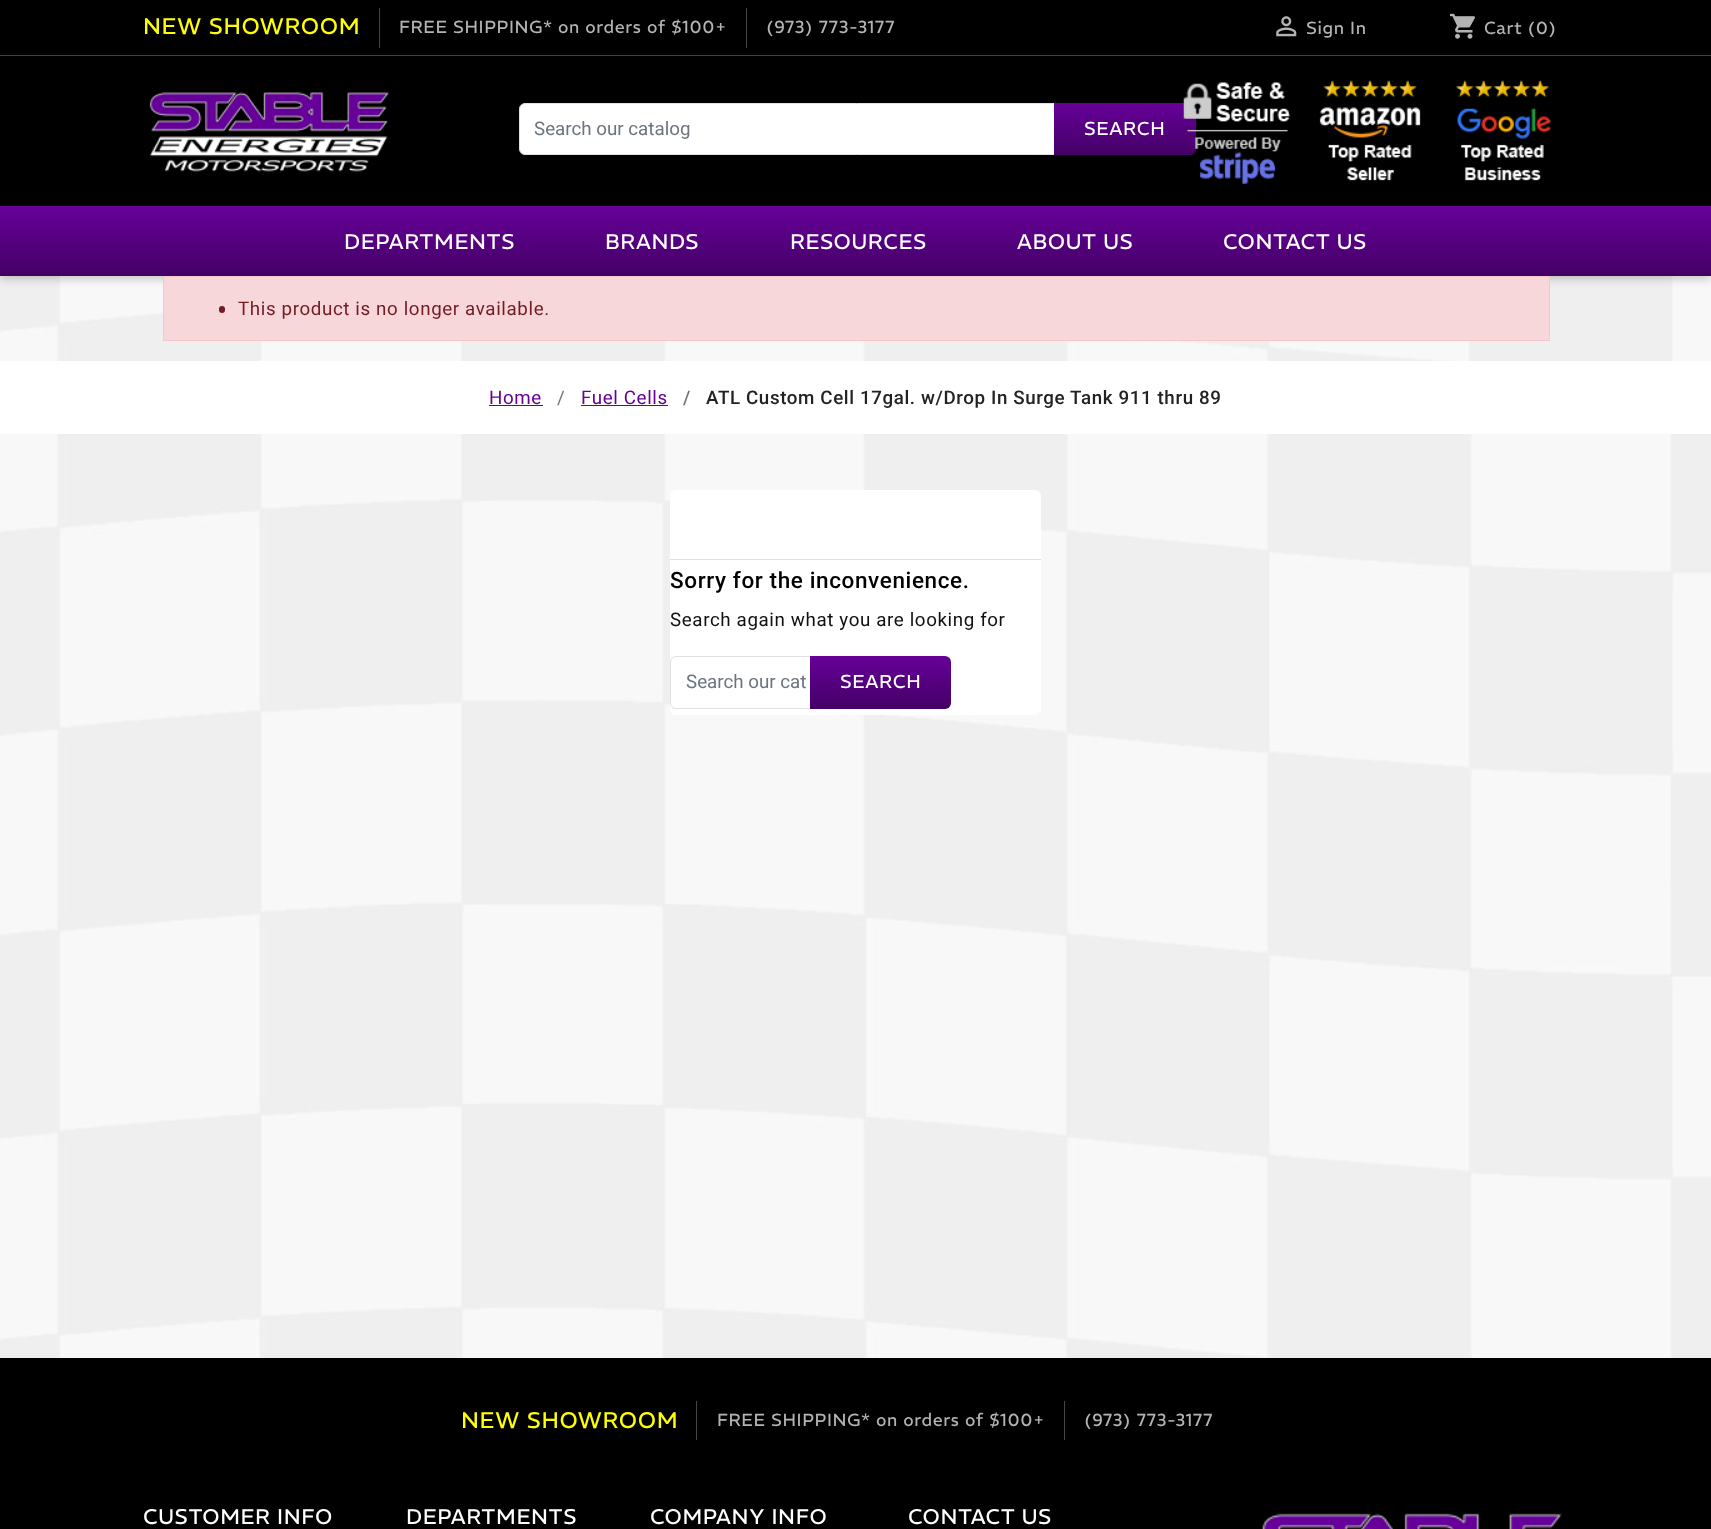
(async () => {
  const canvas = document.querySelector("canvas");
  canvas.width = 1711;
  canvas.height = 1529;
  const ctx = canvas.getContext("2d");
  ctx.miterLimit = 4;
  ctx.fontKerning = "normal";
  async function loadImage(src) {
    const img = new Image();
    img.src = src;
    await img.decode();
    return img;
  }
  let gradient;

  ctx.fillStyle = "#ffffff";
  ctx.fillRect(0, 0, 1711, 1529);
  ctx.drawImage(await loadImage("img/8.png"), 0, 276, 1711, 1082);
  ctx.fillStyle = "rgba(0, 0, 0, 0.2)";
  ctx.filter = "blur(4px)";
  ctx.beginPath();
  ctx.rect(0, 3, 1711, 276);
  ctx.fill();
  ctx.filter = "none";
  for (const [x, y, w, h, color] of [
    [0, 0, 1711, 206, "#000000"],
    [0, 55, 1711, 1, "#434343"],
    [379, 8, 1, 40, "#444444"],
    [746, 8, 1, 40, "#444444"],
  ]) {
    ctx.fillStyle = color;
    ctx.fillRect(x, y, w, h);
  }
  ctx.drawImage(await loadImage("img/1.png"), 1276, 16, 21, 21);
  ctx.drawImage(await loadImage("img/2.png"), 1450, 13, 25, 26);
  ctx.drawImage(await loadImage("img/3.png"), 149, 92, 240, 80);
  ctx.fillStyle = "#ffffff";
  ctx.beginPath();
  ctx.roundRect(519.5, 103.5, 674, 51, 5.5);
  ctx.fill();
  ctx.strokeStyle = "#e1e1e1";
  ctx.stroke();
  gradient = ctx.createLinearGradient(1125, 155, 1125, 103);
  gradient.addColorStop(0, "#440066");
  gradient.addColorStop(1, "#660099");
  ctx.fillStyle = gradient;
  ctx.beginPath();
  ctx.roundRect(1054, 103, 142, 52, [0, 6, 6, 0]);
  ctx.fill();
  ctx.drawImage(await loadImage("img/4.png"), 1183, 82, 108, 102);
  ctx.drawImage(await loadImage("img/5.png"), 1319, 80, 102, 101);
  ctx.drawImage(await loadImage("img/6.png"), 1456, 80, 96, 101);
  gradient = ctx.createLinearGradient(856, 276, 856, 206);
  gradient.addColorStop(0, "#440066");
  gradient.addColorStop(1, "#660099");
  ctx.fillStyle = gradient;
  ctx.fillRect(0, 206, 1711, 70);
  ctx.fillStyle = "#f8d7da";
  ctx.beginPath();
  ctx.rect(163.5, 276.5, 1386, 64);
  ctx.fill();
  ctx.strokeStyle = "#f5c6cb";
  ctx.stroke();
  ctx.fillStyle = "#721c24";
  ctx.beginPath();
  ctx.roundRect(219, 306, 6, 7, 3);
  ctx.fill();
  for (const [x, y, w, h, color] of [
    [0, 361, 1711, 73, "#ffffff"],
    [489, 405, 54, 1, "#660099"],
    [581, 405, 87, 1, "#660099"],
  ]) {
    ctx.fillStyle = color;
    ctx.fillRect(x, y, w, h);
  }
  ctx.fillStyle = "#ffffff";
  ctx.beginPath();
  ctx.roundRect(670, 490, 371, 225, 6);
  ctx.fill();
  ctx.fillStyle = "#dfdfdf";
  ctx.fillRect(670, 559, 371, 1);
  ctx.beginPath();
  ctx.roundRect(670.5, 656.5, 278, 52, 5.5);
  ctx.strokeStyle = "#e1e1e1";
  ctx.stroke();
  gradient = ctx.createLinearGradient(881, 709, 881, 656);
  gradient.addColorStop(0, "#440066");
  gradient.addColorStop(1, "#660099");
  ctx.fillStyle = gradient;
  ctx.beginPath();
  ctx.roundRect(810, 656, 141, 53, [0, 6, 6, 0]);
  ctx.fill();
  for (const [x, y, w, h, color] of [
    [0, 1358, 1711, 171, "#000000"],
    [696, 1401, 1, 39, "#444444"],
    [1064, 1401, 1, 39, "#444444"],
  ]) {
    ctx.fillStyle = color;
    ctx.fillRect(x, y, w, h);
  }
  ctx.drawImage(await loadImage("img/7.png"), 1262, 1513, 300, 16);
  ctx.letterSpacing = "0.62px";
  ctx.font = "500 22.5px REM";
  ctx.fillStyle = "#ffff00";
  ctx.fillText("NEW SHOWROOM", 143, 34);
  ctx.font = "500 17.5px REM";
  ctx.fillStyle = "#b3b3b3";
  for (const [text, x, y] of [
    ["FREE SHIPPING* on orders of $100+", 399, 33],
    ["(973) 773-3177", 766, 33],
    ["Sign In", 1306, 34],
    ["Cart (0)", 1484, 34],
  ]) {
    ctx.fillText(text, x, y);
  }
  ctx.letterSpacing = "0px";
  ctx.font = "18.75px Roboto";
  ctx.fillStyle = "#6c757d";
  ctx.fillText("Search our catalog", 534, 135);
  ctx.letterSpacing = "0.62px";
  ctx.font = "500 18.75px REM";
  ctx.fillStyle = "#ffffff";
  ctx.fillText("SEARCH", 1084, 135);
  ctx.font = "500 21.25px REM";
  for (const [text, x, y] of [
    ["DEPARTMENTS", 344, 249],
    ["BRANDS", 605, 249],
    ["RESOURCES", 790, 249],
    ["ABOUT US", 1017, 249],
    ["CONTACT US", 1223, 249],
  ]) {
    ctx.fillText(text, x, y);
  }
  ctx.font = "18.75px Roboto";
  ctx.fillStyle = "#721c24";
  ctx.fillText("This product is no longer available.", 238, 315);
  ctx.fillStyle = "#660099";
  ctx.fillText("Home", 489, 404);
  ctx.fillStyle = "#6c757d";
  ctx.fillText("/", 557, 404);
  ctx.fillStyle = "#660099";
  ctx.fillText("Fuel Cells", 581, 404);
  ctx.font = "500 18.75px Roboto";
  ctx.fillStyle = "#6c757d";
  ctx.fillText("/", 683, 404);
  ctx.fillStyle = "#222222";
  ctx.fillText("ATL Custom Cell 17gal. w/Drop In Surge Tank 911 thru 89", 706, 404);
  ctx.font = "500 22.5px Roboto";
  ctx.fillStyle = "#000000";
  ctx.fillText("Sorry for the inconvenience.", 670, 588);
  ctx.font = "18.75px Roboto";
  ctx.fillStyle = "#111111";
  ctx.fillText("Search again what you are looking for", 670, 626);
  ctx.letterSpacing = "0px";
  ctx.fillStyle = "#6c757d";
  ctx.fillText("Search our cat", 686, 688);
  ctx.letterSpacing = "0.62px";
  ctx.font = "500 18.75px REM";
  ctx.fillStyle = "#ffffff";
  ctx.fillText("SEARCH", 840, 688);
  ctx.font = "500 22.5px REM";
  ctx.fillStyle = "#ffff00";
  ctx.fillText("NEW SHOWROOM", 461, 1428);
  ctx.font = "500 17.5px REM";
  ctx.fillStyle = "#b3b3b3";
  ctx.fillText("FREE SHIPPING* on orders of $100+", 717, 1426);
  ctx.fillText("(973) 773-3177", 1084, 1426);
  ctx.font = "500 21.25px REM";
  ctx.fillStyle = "#ffffff";
  for (const [text, x, y] of [
    ["CUSTOMER INFO", 143, 1524],
    ["DEPARTMENTS", 406, 1524],
    ["COMPANY INFO", 650, 1524],
    ["CONTACT US", 908, 1524],
  ]) {
    ctx.fillText(text, x, y);
  }
})();
